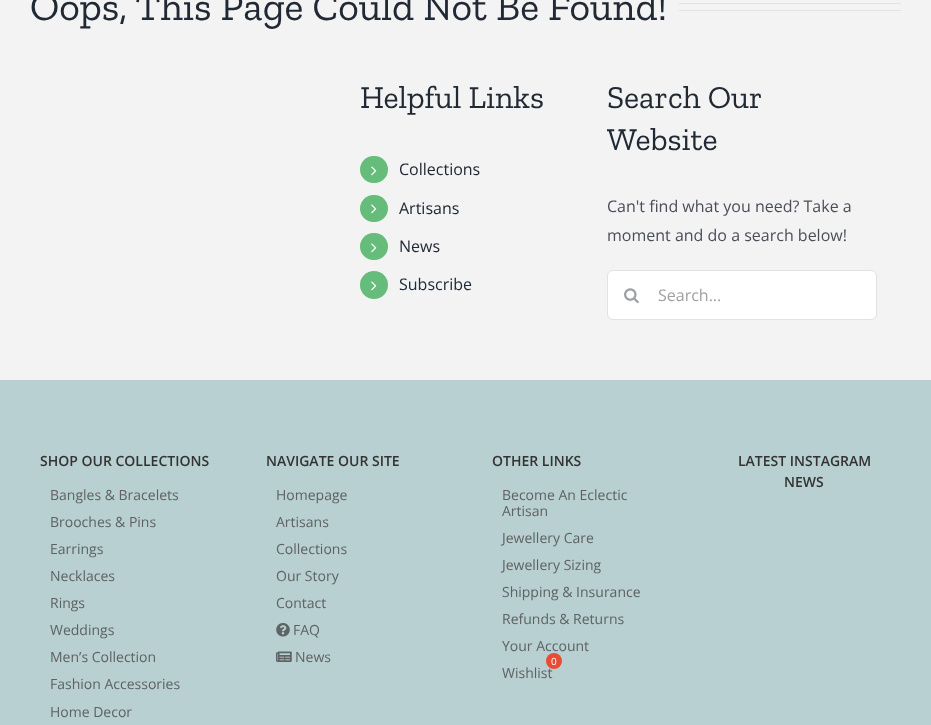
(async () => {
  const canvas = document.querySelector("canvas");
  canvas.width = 931;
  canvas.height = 725;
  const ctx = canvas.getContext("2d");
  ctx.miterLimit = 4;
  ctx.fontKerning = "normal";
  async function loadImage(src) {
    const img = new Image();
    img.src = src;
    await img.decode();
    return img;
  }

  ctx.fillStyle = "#f3f3f3";
  ctx.fillRect(0, 0, 931, 725);
  ctx.fillStyle = "#e2e2e2";
  ctx.fillRect(679, 3, 222, 1);
  ctx.fillRect(679, 10, 222, 1);
  ctx.fillStyle = "#65bc7b";
  ctx.beginPath();
  ctx.roundRect(360, 156, 28, 27, 13.5);
  ctx.fill();
  ctx.drawImage(await loadImage("img/1.png"), 371, 166, 6, 10);
  ctx.beginPath();
  ctx.roundRect(360, 195, 28, 27, 13.5);
  ctx.fill();
  ctx.drawImage(await loadImage("img/1.png"), 371, 204, 6, 10);
  ctx.beginPath();
  ctx.roundRect(360, 233, 28, 27, 13.5);
  ctx.fill();
  ctx.drawImage(await loadImage("img/1.png"), 371, 243, 6, 10);
  ctx.beginPath();
  ctx.arc(374, 285, 14, 0, Math.PI * 2);
  ctx.fill();
  ctx.drawImage(await loadImage("img/1.png"), 371, 281, 6, 10);
  ctx.fillStyle = "#ffffff";
  ctx.beginPath();
  ctx.roundRect(607.5, 270.5, 269, 49, 5.5);
  ctx.fill();
  ctx.strokeStyle = "#e2e2e2";
  ctx.stroke();
  ctx.drawImage(await loadImage("img/2.png"), 624, 288, 15, 16);
  ctx.fillStyle = "#b8d0d2";
  ctx.fillRect(0, 380, 931, 345);
  ctx.drawImage(await loadImage("img/3.png"), 276, 623, 14, 14);
  ctx.drawImage(await loadImage("img/4.png"), 276, 651, 16, 11);
  ctx.font = "40px Zilla Slab";
  ctx.fillStyle = "#212934";
  ctx.fillText("Oops, This Page Could Not Be Found!", 30, 20);
  ctx.font = "32px Zilla Slab";
  ctx.fillText("Helpful Links", 360, 108);
  ctx.font = "16px Open Sans";
  for (const [text, x, y] of [
    ["Collections", 399, 175],
    ["Artisans", 399, 214],
    ["News", 399, 252],
    ["Subscribe", 399, 290],
  ]) {
    ctx.fillText(text, x, y);
  }
  ctx.font = "32px Zilla Slab";
  ctx.fillText("Search Our", 607, 108);
  ctx.fillText("Website", 607, 150);
  ctx.font = "16px Open Sans";
  ctx.fillStyle = "#4a4e57";
  ctx.fillText("Can't find what you need? Take a", 607, 212);
  ctx.fillText("moment and do a search below!", 607, 241);
  ctx.fillStyle = "#9ea0a4";
  ctx.fillText("Search...", 658, 301);
  ctx.font = "600 14px Open Sans";
  ctx.fillStyle = "#333333";
  ctx.fillText("SHOP OUR COLLECTIONS", 40, 466);
  ctx.font = "14px Open Sans";
  ctx.fillStyle = "#5e6263";
  for (const [text, x, y] of [
    ["Bangles & Bracelets", 50, 500],
    ["Brooches & Pins", 50, 527],
    ["Earrings", 50, 554],
    ["Necklaces", 50, 581],
    ["Rings", 50, 608],
    ["Weddings", 50, 635],
    ["Men’s Collection", 50, 662],
    ["Fashion Accessories", 50, 689],
    ["Home Decor", 50, 717],
  ]) {
    ctx.fillText(text, x, y);
  }
  ctx.font = "600 14px Open Sans";
  ctx.fillStyle = "#333333";
  ctx.fillText("NAVIGATE OUR SITE", 266, 466);
  ctx.font = "14px Open Sans";
  ctx.fillStyle = "#5e6263";
  for (const [text, x, y] of [
    ["Homepage", 276, 500],
    ["Artisans", 276, 527],
    ["Collections", 276, 554],
    ["Our Story", 276, 581],
    ["Contact", 276, 608],
    ["FAQ", 293, 635],
    ["News", 295, 662],
  ]) {
    ctx.fillText(text, x, y);
  }
  ctx.font = "600 14px Open Sans";
  ctx.fillStyle = "#333333";
  ctx.fillText("OTHER LINKS", 492, 466);
  ctx.font = "14px Open Sans";
  ctx.fillStyle = "#5e6263";
  for (const [text, x, y] of [
    ["Become An Eclectic", 502, 500],
    ["Artisan", 502, 516],
    ["Jewellery Care", 502, 543],
    ["Jewellery Sizing", 502, 570],
    ["Shipping & Insurance", 502, 597],
    ["Refunds & Returns", 502, 624],
    ["Your Account", 502, 651],
    ["Wishlist", 502, 678],
  ]) {
    ctx.fillText(text, x, y);
  }
  ctx.fillStyle = "#e94b35";
  ctx.beginPath();
  ctx.arc(554, 661, 8, 0, Math.PI * 2);
  ctx.fill();
  ctx.font = "10px Open Sans";
  ctx.fillStyle = "#ffffff";
  ctx.fillText("0", 551, 665);
  ctx.font = "600 14px Open Sans";
  ctx.fillStyle = "#333333";
  ctx.fillText("LATEST INSTAGRAM", 738, 466);
  ctx.fillText("NEWS", 784, 487);
})();
